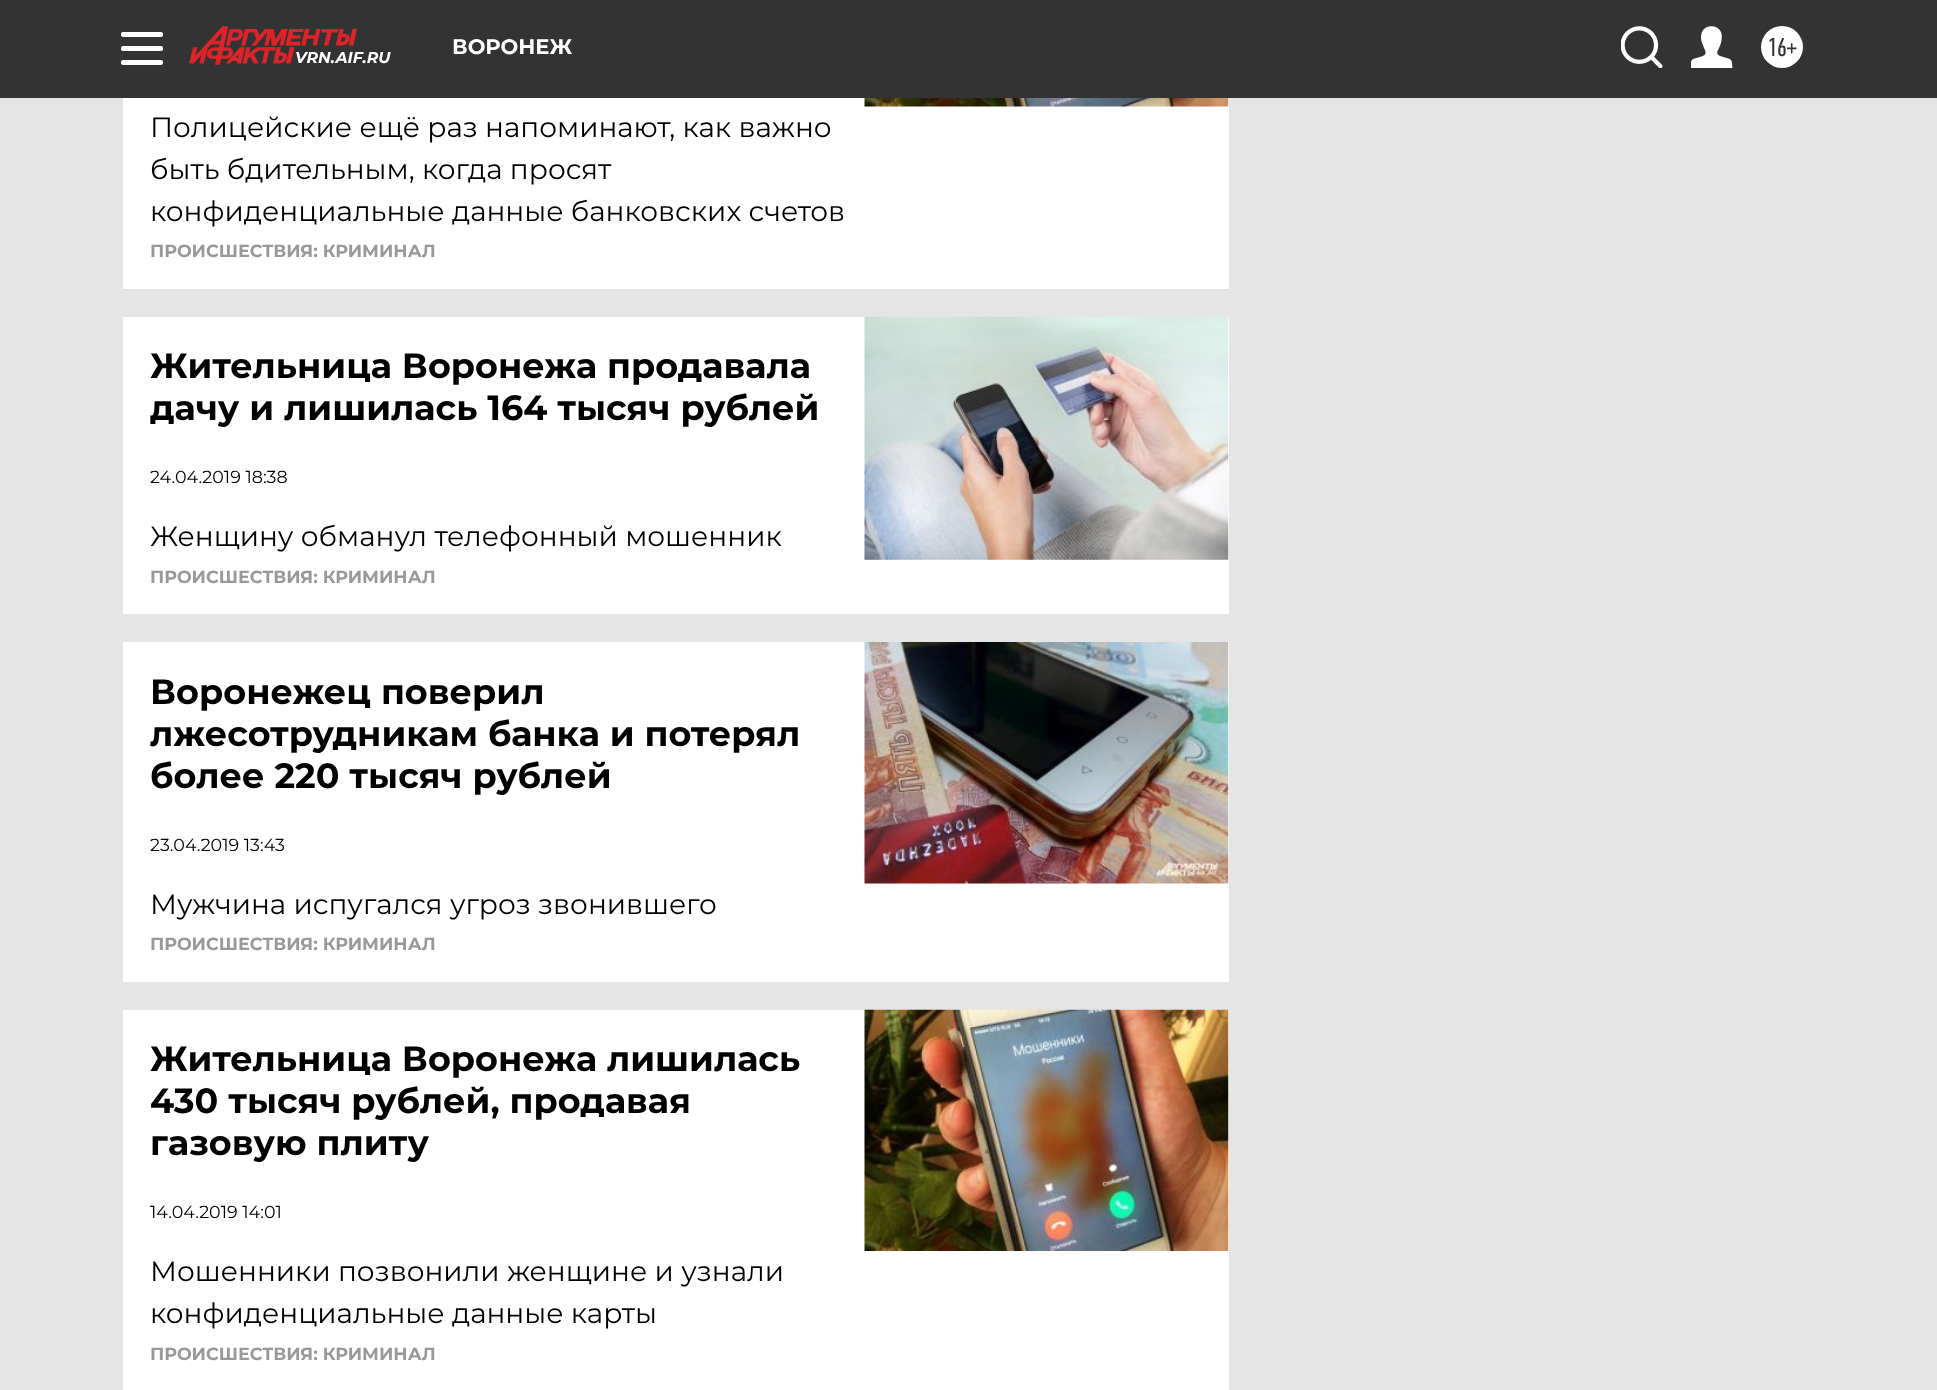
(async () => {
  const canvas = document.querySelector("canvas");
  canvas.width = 1937;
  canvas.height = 1390;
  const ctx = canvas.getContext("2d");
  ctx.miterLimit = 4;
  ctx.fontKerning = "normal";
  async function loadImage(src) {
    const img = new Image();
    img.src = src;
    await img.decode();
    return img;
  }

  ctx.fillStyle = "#e5e5e5";
  ctx.fillRect(0, 0, 1937, 1390);
  ctx.fillStyle = "#333333";
  ctx.fillRect(0, 0, 1937, 98);
  ctx.fillStyle = "#ffffff";
  ctx.beginPath();
  ctx.roundRect(121, 32, 42, 5, 2);
  ctx.fill();
  ctx.beginPath();
  ctx.roundRect(121, 46, 42, 5, 2);
  ctx.fill();
  ctx.beginPath();
  ctx.roundRect(121, 60, 42, 5, 2);
  ctx.fill();
  ctx.drawImage(await loadImage("img/1.png"), 1621, 26, 42, 42);
  ctx.drawImage(await loadImage("img/2.png"), 1691, 26, 42, 42);
  ctx.beginPath();
  ctx.arc(1782, 47, 21, 0, Math.PI * 2);
  ctx.fill();
  ctx.drawImage(await loadImage("img/3.png"), 189, 26, 168, 39);
  ctx.fillRect(123, 98, 1106, 191);
  ctx.drawImage(await loadImage("img/4.png"), 864, 98, 365, 9);
  ctx.fillRect(123, 317, 1106, 297);
  ctx.drawImage(await loadImage("img/5.png"), 864, 316, 365, 244);
  ctx.fillRect(123, 642, 1106, 340);
  ctx.drawImage(await loadImage("img/6.png"), 864, 642, 365, 242);
  ctx.fillRect(123, 1010, 1106, 380);
  ctx.drawImage(await loadImage("img/7.png"), 864, 1009, 365, 242);
  ctx.font = "bold 21px Montserrat";
  ctx.fillText("ВОРОНЕЖ", 452, 54);
  ctx.font = "26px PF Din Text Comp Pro";
  ctx.fillStyle = "#333333";
  ctx.fillText("16+", 1767, 56);
  ctx.font = "italic bold 15.75px Montserrat";
  ctx.fillStyle = "#ffffff";
  ctx.fillText("VRN.AIF.RU", 295, 63);
  ctx.font = "28px Montserrat";
  ctx.fillStyle = "#000000";
  for (const [text, x, y] of [
    ["Полицейские ещё раз напоминают, как важно", 150, 137],
    ["быть бдительным, когда просят", 150, 179],
    ["конфиденциальные данные банковских счетов", 150, 221],
  ]) {
    ctx.fillText(text, x, y);
  }
  ctx.font = "bold 17.5px Montserrat";
  ctx.fillStyle = "#999999";
  ctx.fillText("ПРОИСШЕСТВИЯ: КРИМИНАЛ", 150, 257);
  ctx.font = "bold 35px Montserrat";
  ctx.fillStyle = "#000000";
  ctx.fillText("Жительница Воронежа продавала", 150, 378);
  ctx.fillText("дачу и лишилась 164 тысяч рублей", 150, 420);
  ctx.font = "17.5px Montserrat";
  ctx.fillText("24.04.2019 18:38", 150, 483);
  ctx.font = "28px Montserrat";
  ctx.fillText("Женщину обманул телефонный мошенник", 150, 546);
  ctx.font = "bold 17.5px Montserrat";
  ctx.fillStyle = "#999999";
  ctx.fillText("ПРОИСШЕСТВИЯ: КРИМИНАЛ", 150, 583);
  ctx.font = "bold 35px Montserrat";
  ctx.fillStyle = "#000000";
  for (const [text, x, y] of [
    ["Воронежец поверил", 150, 704],
    ["лжесотрудникам банка и потерял", 150, 746],
    ["более 220 тысяч рублей", 150, 788],
  ]) {
    ctx.fillText(text, x, y);
  }
  ctx.font = "17.5px Montserrat";
  ctx.fillText("23.04.2019 13:43", 150, 851);
  ctx.font = "28px Montserrat";
  ctx.fillText("Мужчина испугался угроз звонившего", 150, 914);
  ctx.font = "bold 17.5px Montserrat";
  ctx.fillStyle = "#999999";
  ctx.fillText("ПРОИСШЕСТВИЯ: КРИМИНАЛ", 150, 950);
  ctx.font = "bold 35px Montserrat";
  ctx.fillStyle = "#000000";
  for (const [text, x, y] of [
    ["Жительница Воронежа лишилась", 150, 1071],
    ["430 тысяч рублей, продавая", 150, 1113],
    ["газовую плиту", 150, 1155],
  ]) {
    ctx.fillText(text, x, y);
  }
  ctx.font = "17.5px Montserrat";
  ctx.fillText("14.04.2019 14:01", 150, 1218);
  ctx.font = "28px Montserrat";
  ctx.fillText("Мошенники позвонили женщине и узнали", 150, 1281);
  ctx.fillText("конфиденциальные данные карты", 150, 1323);
  ctx.font = "bold 17.5px Montserrat";
  ctx.fillStyle = "#999999";
  ctx.fillText("ПРОИСШЕСТВИЯ: КРИМИНАЛ", 150, 1360);
})();
